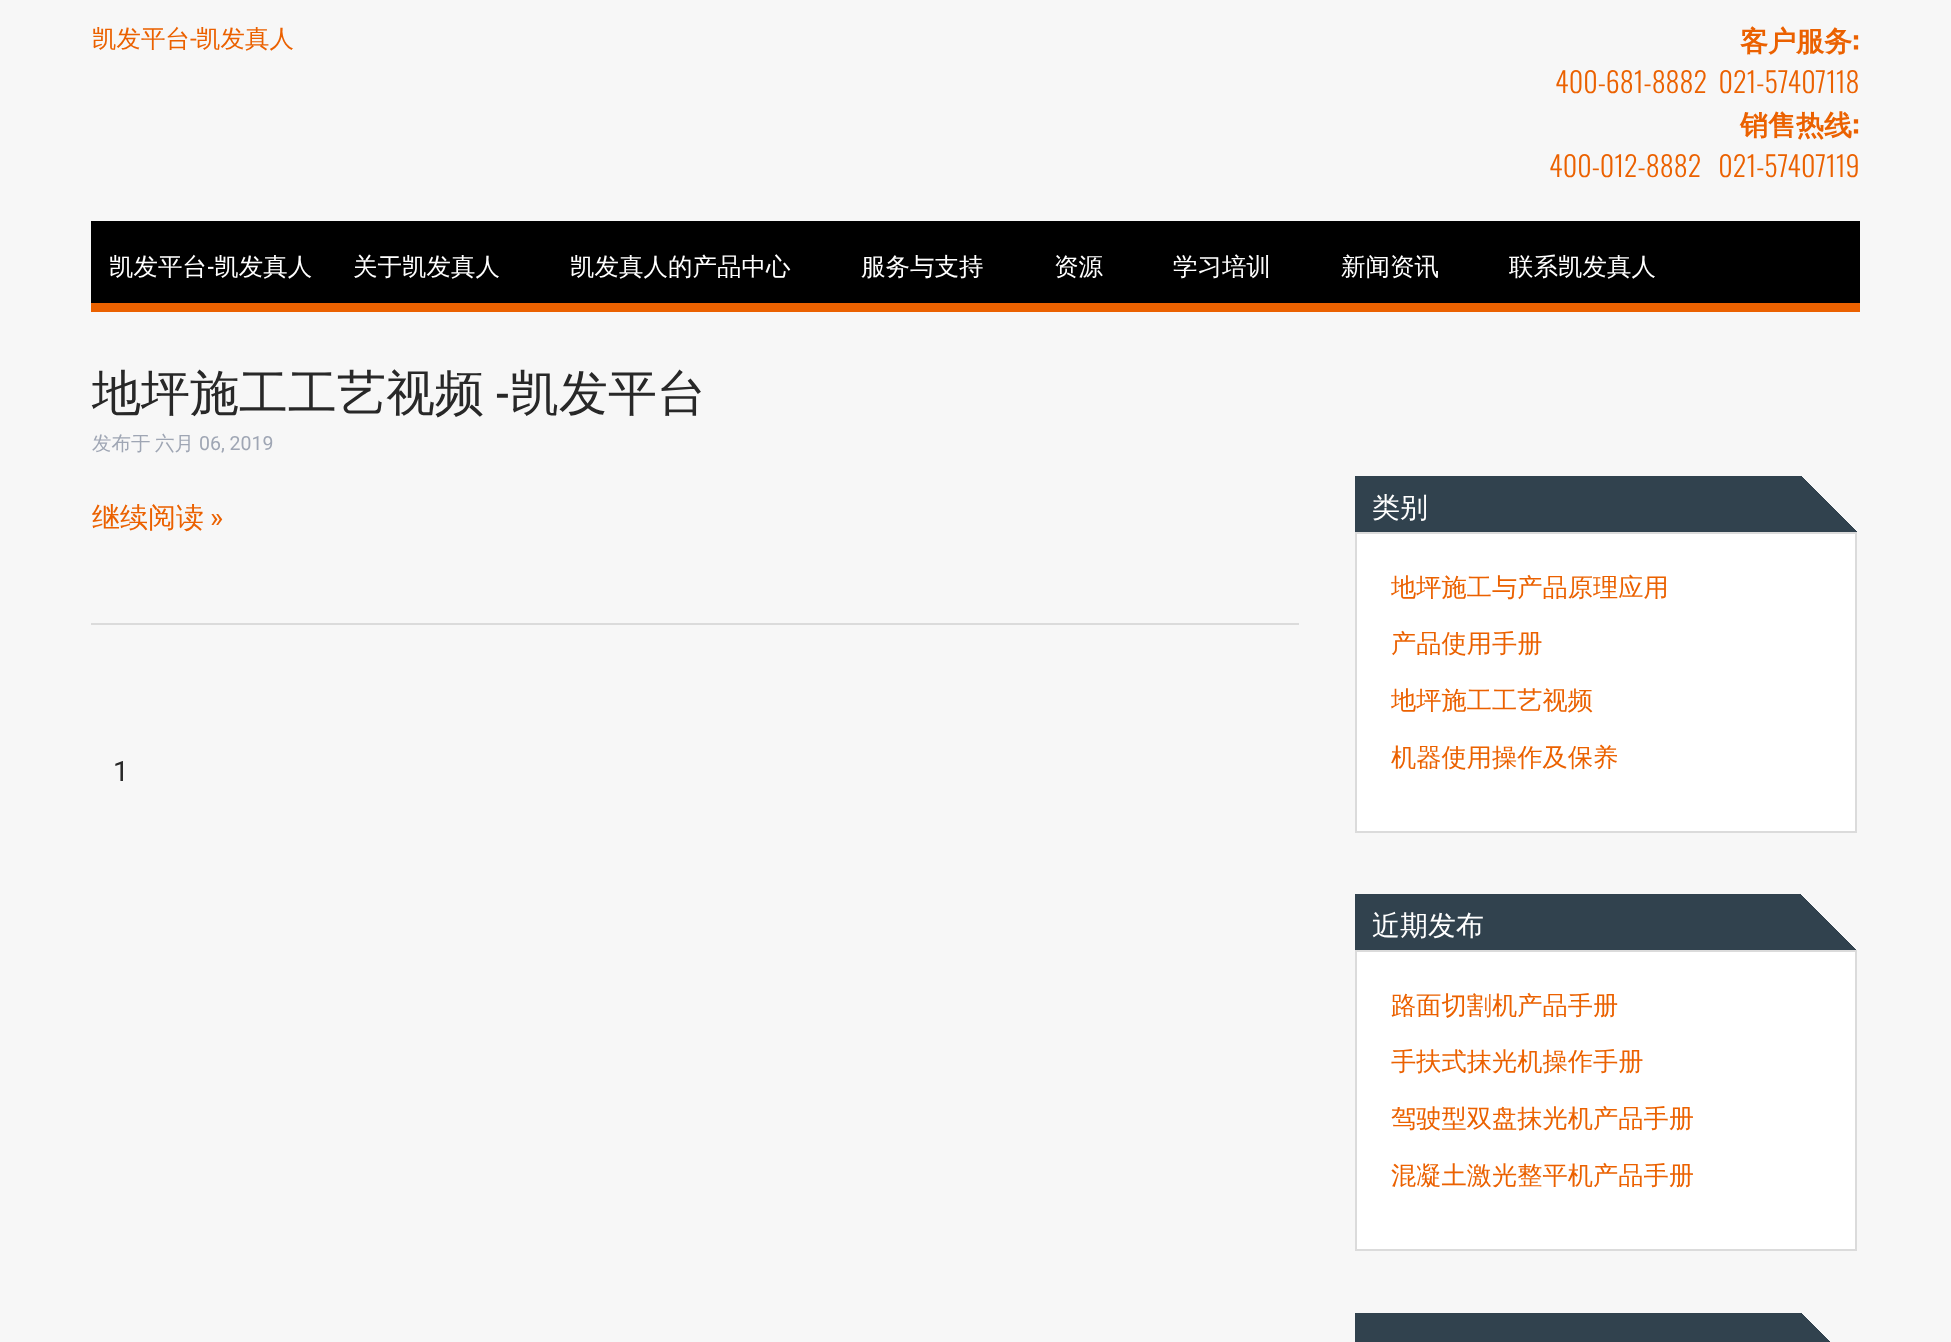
(async () => {
  const canvas = document.querySelector("canvas");
  canvas.width = 1951;
  canvas.height = 1342;
  const ctx = canvas.getContext("2d");
  ctx.miterLimit = 4;
  ctx.fontKerning = "normal";
  let gradient;

  ctx.fillStyle = "#f7f7f7";
  ctx.fillRect(0, 0, 1951, 1342);
  for (const [x, y, w, h, color] of [
    [91, 221, 1769, 82, "#000000"],
    [91, 303, 1769, 9, "#eb6100"],
    [91, 623, 1208, 2, "#dbdbdb"],
  ]) {
    ctx.fillStyle = color;
    ctx.fillRect(x, y, w, h);
  }
  gradient = ctx.createLinearGradient(1745, 364, 1466, 644);
  gradient.addColorStop(0.1, "#f7f7f7");
  gradient.addColorStop(0.1, "#31424e");
  ctx.fillStyle = gradient;
  ctx.fillRect(1355, 476, 502, 56);
  ctx.fillStyle = "#ffffff";
  ctx.beginPath();
  ctx.rect(1356, 533, 500, 299);
  ctx.fill();
  ctx.strokeStyle = "#dbdbdb";
  ctx.lineWidth = 2;
  ctx.stroke();
  gradient = ctx.createLinearGradient(1745, 783, 1466, 1062);
  gradient.addColorStop(0.1, "#f7f7f7");
  gradient.addColorStop(0.1, "#31424e");
  ctx.fillStyle = gradient;
  ctx.fillRect(1355, 894, 501, 56);
  ctx.fillStyle = "#ffffff";
  ctx.beginPath();
  ctx.rect(1356, 951, 500, 299);
  ctx.fill();
  ctx.stroke();
  gradient = ctx.createLinearGradient(1745, 1201, 1466, 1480);
  gradient.addColorStop(0.1, "#f7f7f7");
  gradient.addColorStop(0.1, "#31424e");
  ctx.fillStyle = gradient;
  ctx.fillRect(1355, 1313, 475, 29);
  ctx.font = "500 24.5px WenQuanYi Zen Hei";
  ctx.fillStyle = "#eb6100";
  ctx.fillText("凯发平台", 92, 47);
  ctx.font = "24.5px Roboto";
  ctx.fillText("-", 190, 47);
  ctx.font = "500 24.5px WenQuanYi Zen Hei";
  ctx.fillText("凯发真人", 196, 47);
  ctx.font = "bold 28px WenQuanYi Zen Hei";
  ctx.fillText("客户服务", 1740, 51);
  ctx.font = "bold 28px Oswald";
  ctx.fillText(":", 1852, 51);
  ctx.font = "300 28px Oswald";
  ctx.fillText("400-681-8882  021-57407118", 1555, 93);
  ctx.font = "bold 28px WenQuanYi Zen Hei";
  ctx.fillText("销售热线", 1740, 135);
  ctx.font = "bold 28px Oswald";
  ctx.fillText(":", 1852, 135);
  ctx.font = "300 28px Oswald";
  ctx.fillText("400-012-8882   021-57407119", 1549, 177);
  ctx.font = "500 24.5px WenQuanYi Zen Hei";
  ctx.fillStyle = "#ffffff";
  ctx.fillText("凯发平台 凯发真人", 109, 275);
  ctx.font = "24.5px Oswald";
  ctx.fillText("-", 207, 275);
  ctx.font = "500 24.5px WenQuanYi Zen Hei";
  for (const [text, x, y] of [
    ["关于凯发真人", 353, 275],
    ["凯发真人的产品中心", 570, 275],
    ["服务与支持", 861, 275],
    ["资源", 1054, 275],
    ["学习培训", 1173, 275],
    ["新闻资讯", 1341, 275],
    ["联系凯发真人", 1509, 275],
  ]) {
    ctx.fillText(text, x, y);
  }
  ctx.font = "500 49px WenQuanYi Zen Hei";
  ctx.fillStyle = "#282828";
  ctx.fillText("地坪施工工艺视频", 92, 410);
  ctx.font = "49px Oswald";
  ctx.fillText("-", 495, 410);
  ctx.font = "500 49px WenQuanYi Zen Hei";
  ctx.fillText("凯发平台", 510, 410);
  ctx.font = "500 19.5px WenQuanYi Zen Hei";
  ctx.fillStyle = "#9fa6b4";
  ctx.fillText("发布于", 92, 450);
  ctx.fillText("六月", 155, 450);
  ctx.font = "19.5px Roboto";
  ctx.fillText("06, 2019", 199, 450);
  ctx.font = "500 28px WenQuanYi Zen Hei";
  ctx.fillStyle = "#eb6100";
  ctx.fillText("继续阅读", 92, 527);
  ctx.font = "28px Roboto";
  ctx.fillText("»", 210, 527);
  ctx.fillStyle = "#282828";
  ctx.fillText("1", 113, 781);
  ctx.font = "500 28px WenQuanYi Zen Hei";
  ctx.fillStyle = "#ffffff";
  ctx.fillText("类别", 1372, 517);
  ctx.font = "500 25.25px WenQuanYi Zen Hei";
  ctx.fillStyle = "#eb6100";
  for (const [text, x, y] of [
    ["地坪施工与产品原理应用", 1391, 596],
    ["产品使用手册", 1391, 652],
    ["地坪施工工艺视频", 1391, 709],
    ["机器使用操作及保养", 1391, 766],
  ]) {
    ctx.fillText(text, x, y);
  }
  ctx.font = "500 28px WenQuanYi Zen Hei";
  ctx.fillStyle = "#ffffff";
  ctx.fillText("近期发布", 1372, 935);
  ctx.font = "500 25.25px WenQuanYi Zen Hei";
  ctx.fillStyle = "#eb6100";
  for (const [text, x, y] of [
    ["路面切割机产品手册", 1391, 1014],
    ["手扶式抹光机操作手册", 1391, 1070],
    ["驾驶型双盘抹光机产品手册", 1391, 1127],
    ["混凝土激光整平机产品手册", 1391, 1184],
  ]) {
    ctx.fillText(text, x, y);
  }
})();
